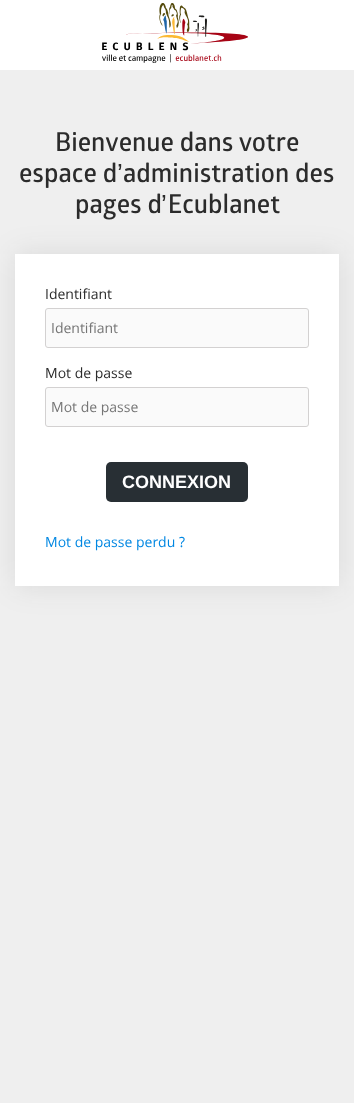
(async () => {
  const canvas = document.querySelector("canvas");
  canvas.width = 354;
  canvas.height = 1103;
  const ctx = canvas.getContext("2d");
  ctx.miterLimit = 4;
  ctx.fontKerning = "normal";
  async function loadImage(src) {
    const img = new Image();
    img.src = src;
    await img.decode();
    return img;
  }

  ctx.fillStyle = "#efefef";
  ctx.fillRect(0, 0, 354, 1103);
  ctx.fillStyle = "#ffffff";
  ctx.fillRect(0, 0, 354, 70);
  ctx.drawImage(await loadImage("img/1.png"), 102, 3, 146, 60);
  ctx.fillStyle = "rgba(38, 40, 41, 0.1)";
  ctx.filter = "blur(15px)";
  ctx.beginPath();
  ctx.rect(15, 254, 324, 332);
  ctx.fill();
  ctx.filter = "none";
  ctx.fillStyle = "#ffffff";
  ctx.fillRect(15, 254, 324, 332);
  ctx.fillStyle = "#fafafa";
  ctx.beginPath();
  ctx.roundRect(45.5, 308.5, 263, 39, 2.5);
  ctx.fill();
  ctx.strokeStyle = "#d3d1d1";
  ctx.stroke();
  ctx.beginPath();
  ctx.roundRect(45.5, 387.5, 263, 39, 2.5);
  ctx.fill();
  ctx.stroke();
  ctx.fillStyle = "#282f34";
  ctx.beginPath();
  ctx.roundRect(106, 462, 142, 40, 5);
  ctx.fill();
  ctx.font = "bold 26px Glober";
  ctx.fillStyle = "#2b2b2b";
  ctx.fillText("Bienvenue dans votre", 55, 151);
  ctx.fillText("espace d administration des", 19, 182);
  ctx.font = "26px Liberation Sans";
  ctx.fillText("’", 117, 182);
  ctx.font = "bold 26px Glober";
  ctx.fillText("pages d Ecublanet", 75, 213);
  ctx.font = "26px Liberation Sans";
  ctx.fillText("’", 161, 213);
  ctx.font = "14px Open Sans";
  ctx.fillText("Identifiant", 45, 299);
  ctx.fillStyle = "#757575";
  ctx.fillText("Identifiant", 51, 333);
  ctx.fillStyle = "#2b2b2b";
  ctx.fillText("Mot de passe", 45, 378);
  ctx.fillStyle = "#757575";
  ctx.fillText("Mot de passe", 51, 412);
  ctx.font = "bold 18px Liberation Sans";
  ctx.fillStyle = "#ffffff";
  ctx.fillText("CONNEXION", 122, 488);
  ctx.font = "14px Open Sans";
  ctx.fillStyle = "#0087e2";
  ctx.fillText("Mot de passe perdu ?", 45, 547);
})();
